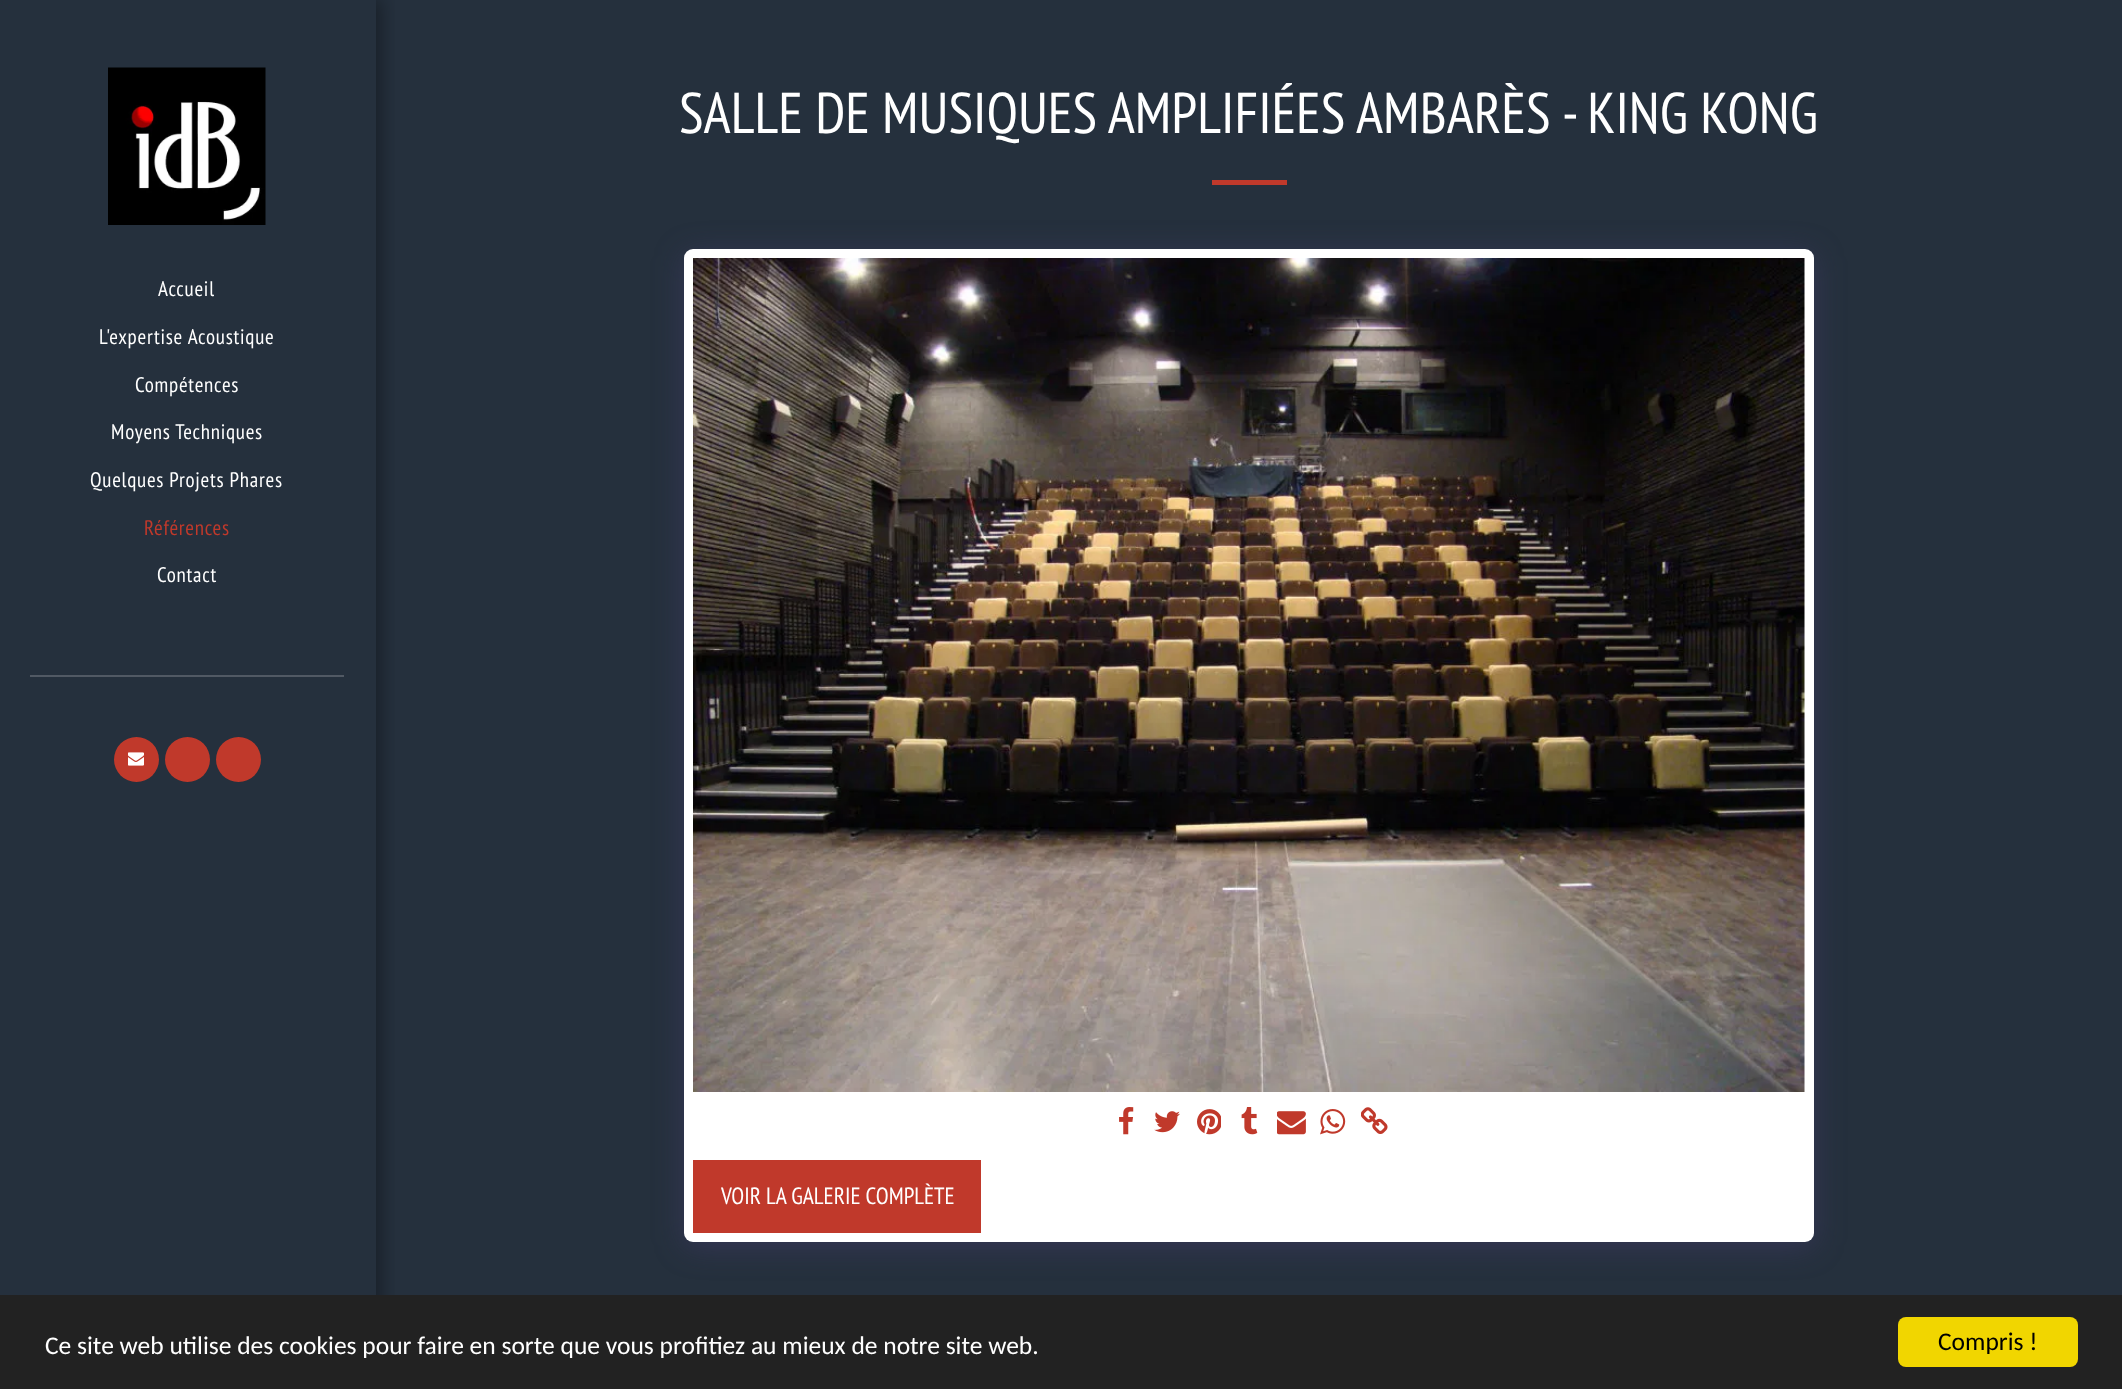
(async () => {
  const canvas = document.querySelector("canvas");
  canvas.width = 2122;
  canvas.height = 1389;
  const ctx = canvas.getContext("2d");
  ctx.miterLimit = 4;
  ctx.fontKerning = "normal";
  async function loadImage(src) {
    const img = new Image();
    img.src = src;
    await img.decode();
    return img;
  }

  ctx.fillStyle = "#25303d";
  ctx.fillRect(0, 0, 2122, 1389);
  ctx.save();
  ctx.beginPath();
  ctx.rect(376, 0, 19, 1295);
  ctx.clip();
  ctx.fillStyle = "rgba(0, 0, 0, 0.35)";
  ctx.filter = "blur(9px)";
  ctx.beginPath();
  ctx.rect(0, -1, 381, 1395);
  ctx.fill();
  ctx.filter = "none";
  ctx.restore();
  ctx.fillRect(375, 0, 1, 1295);
  ctx.drawImage(await loadImage("img/1.png"), 108, 67, 158, 158);
  ctx.fillStyle = "#515964";
  ctx.fillRect(30, 675, 314, 2);
  ctx.fillStyle = "#c0392b";
  ctx.beginPath();
  ctx.arc(136.5, 759.5, 22.5, 0, Math.PI * 2);
  ctx.fill();
  ctx.drawImage(await loadImage("img/2.png"), 128, 752, 16, 14);
  ctx.beginPath();
  ctx.arc(187.5, 759.5, 22.5, 0, Math.PI * 2);
  ctx.fill();
  ctx.beginPath();
  ctx.arc(238.5, 759.5, 22.5, 0, Math.PI * 2);
  ctx.fill();
  ctx.fillRect(1212, 180, 75, 5);
  ctx.fillStyle = "rgba(77, 63, 122, 0.4)";
  ctx.filter = "blur(15px)";
  ctx.beginPath();
  ctx.roundRect(684, 254, 1130, 993, 9);
  ctx.fill();
  ctx.filter = "none";
  ctx.fillStyle = "#ffffff";
  ctx.beginPath();
  ctx.roundRect(684, 249, 1130, 993, 9);
  ctx.fill();
  ctx.drawImage(await loadImage("img/3.png"), 693, 258, 1112, 834);
  ctx.drawImage(await loadImage("img/4.png"), 1119, 1107, 15, 28);
  ctx.drawImage(await loadImage("img/5.png"), 1154, 1111, 26, 22);
  ctx.drawImage(await loadImage("img/6.png"), 1197, 1109, 24, 26);
  ctx.drawImage(await loadImage("img/7.png"), 1241, 1107, 17, 28);
  ctx.drawImage(await loadImage("img/8.png"), 1277, 1111, 29, 24);
  ctx.drawImage(await loadImage("img/9.png"), 1320, 1109, 26, 26);
  ctx.drawImage(await loadImage("img/10.png"), 1361, 1107, 27, 27);
  ctx.fillStyle = "#c0392b";
  ctx.fillRect(693, 1160, 288, 73);
  ctx.fillStyle = "#222222";
  ctx.fillRect(0, 1295, 2122, 94);
  ctx.fillStyle = "#f1d600";
  ctx.beginPath();
  ctx.roundRect(1898, 1317, 180, 50, 8);
  ctx.fill();
  ctx.letterSpacing = "0.75px";
  ctx.font = "21px PT Sans Narrow";
  ctx.fillStyle = "#ffffff";
  for (const [text, x, y] of [
    ["Accueil", 158, 296],
    ["L'expertise Acoustique", 99, 344],
    ["Compétences", 135, 392],
    ["Moyens Techniques", 111, 439],
    ["Quelques Projets Phares", 90, 487],
  ]) {
    ctx.fillText(text, x, y);
  }
  ctx.fillStyle = "#c0392b";
  ctx.fillText("Références", 144, 535);
  ctx.fillStyle = "#ffffff";
  ctx.fillText("Contact", 157, 582);
  ctx.letterSpacing = "0px";
  ctx.font = "57.4px PT Sans Narrow";
  ctx.fillText("SALLE DE MUSIQUES AMPLIFIÉES AMBARÈS - KING KONG", 679, 133);
  ctx.font = "23.5px PT Sans Narrow";
  ctx.fillText("VOIR LA GALERIE COMPLÈTE", 721, 1204);
  ctx.font = "25.5px Carlito";
  ctx.fillText("Ce site web utilise des cookies pour faire en sorte que vous profitiez au mieux de notre site web.", 45, 1354);
  ctx.fillStyle = "#000000";
  ctx.fillText("Compris !", 1938, 1350);
})();
